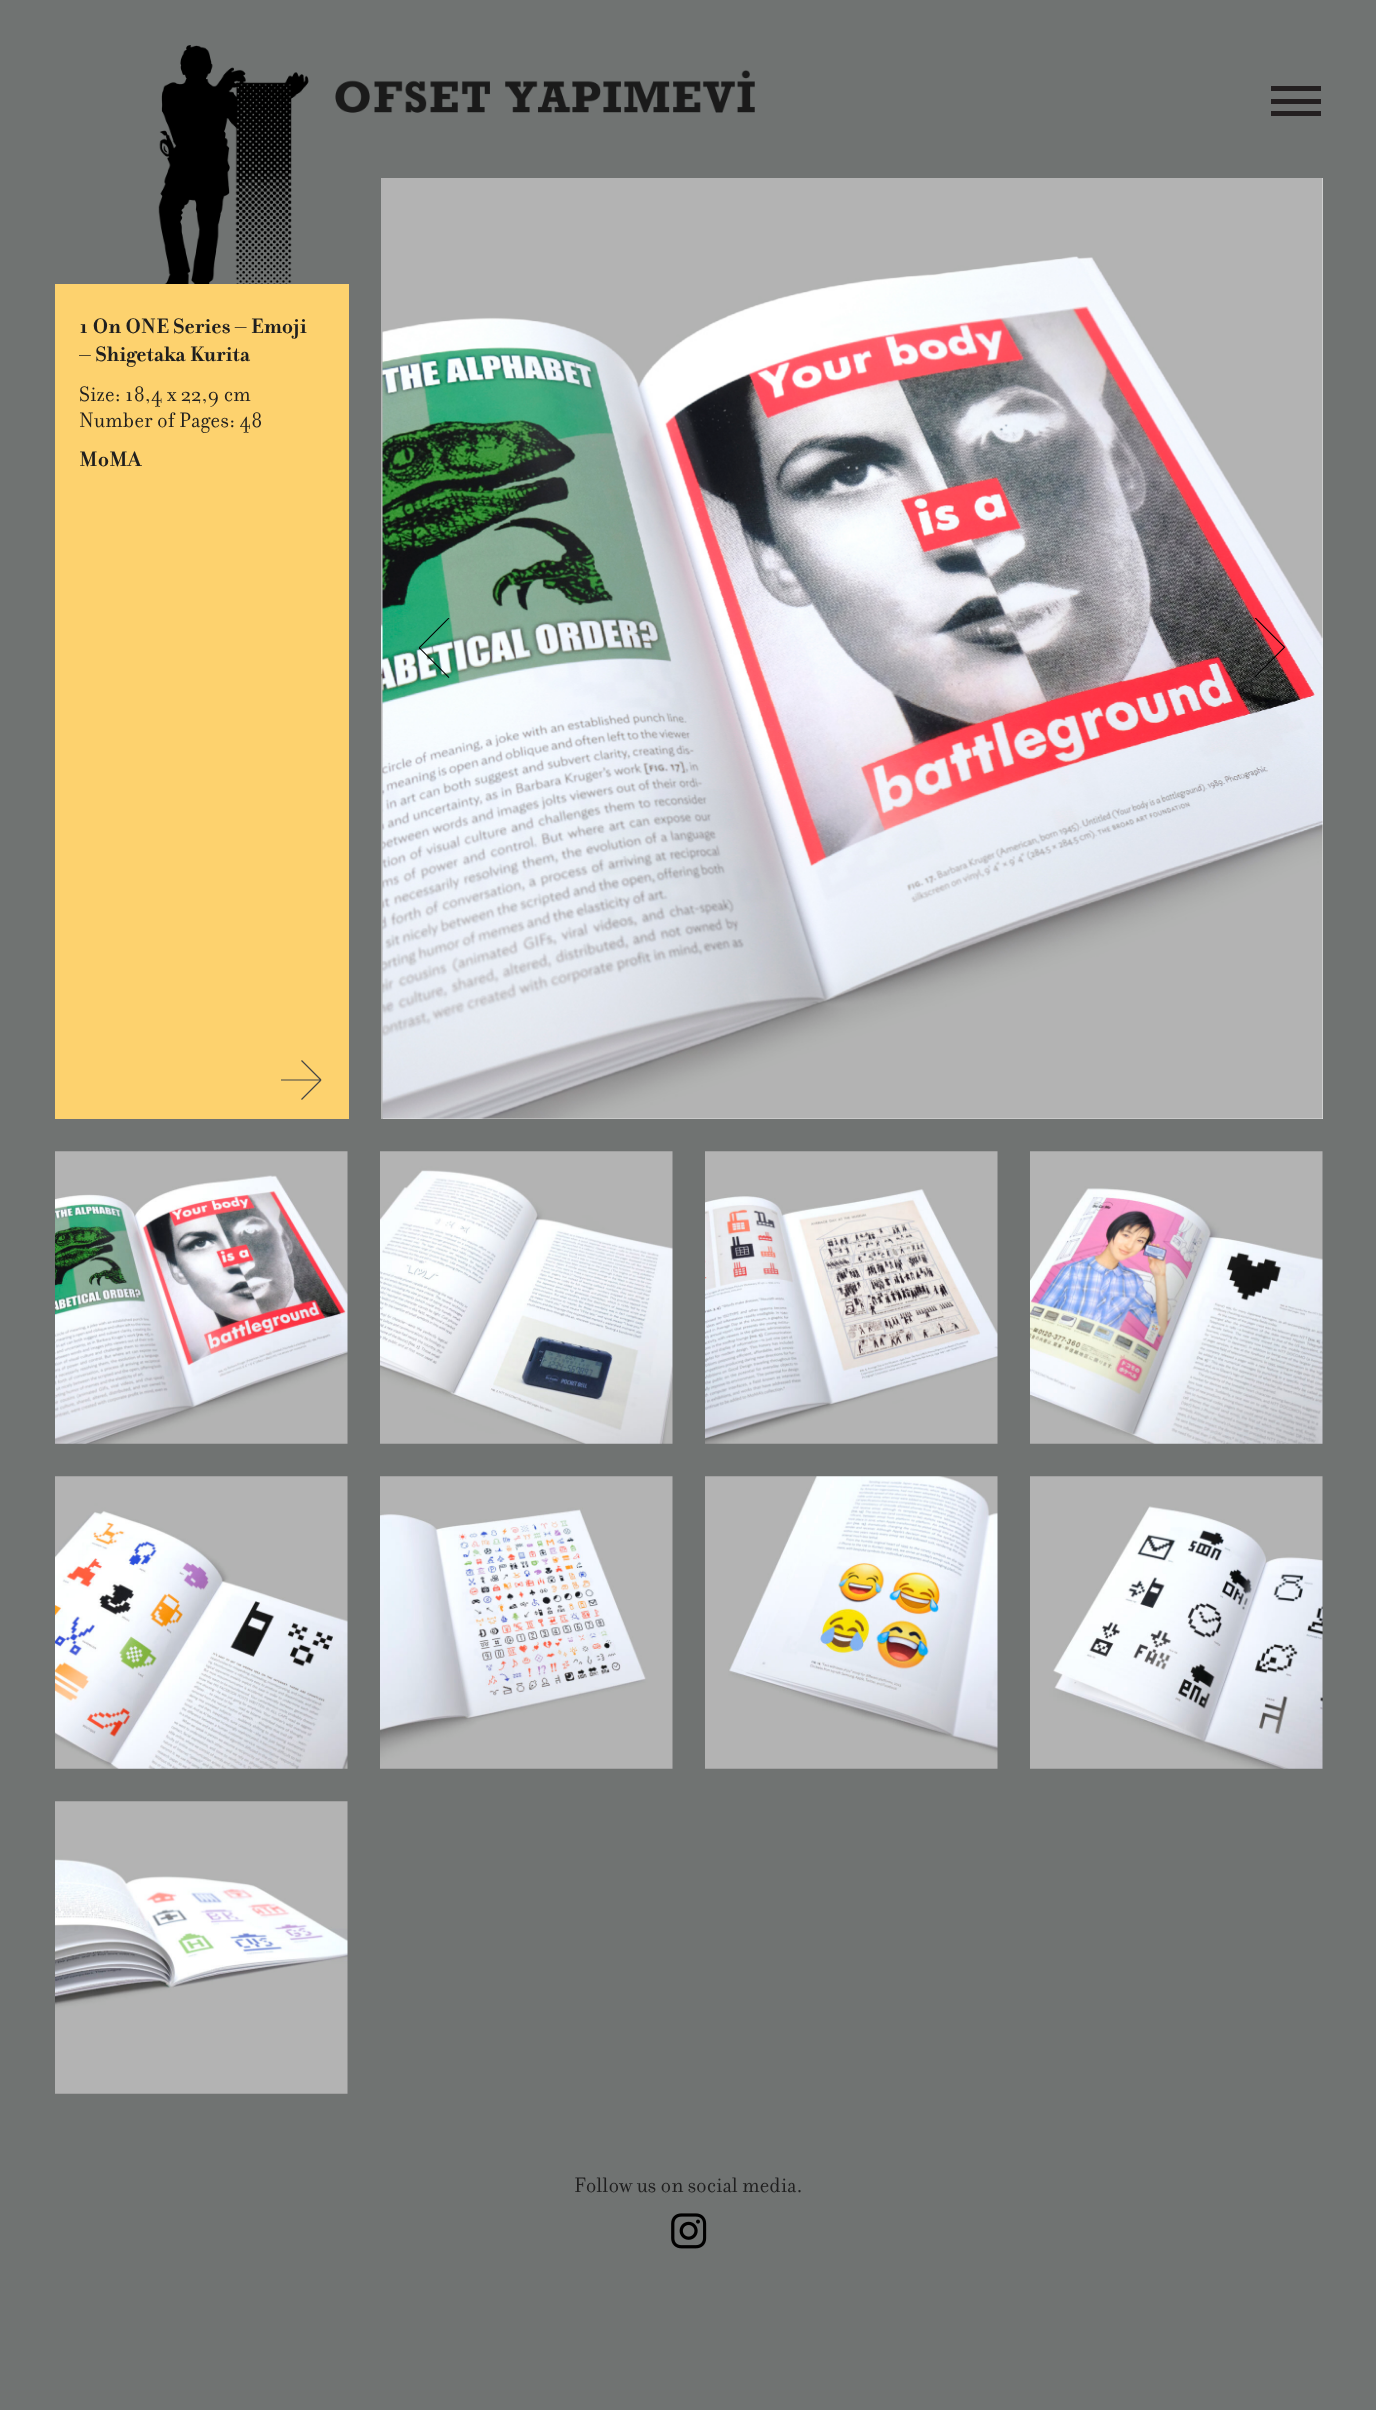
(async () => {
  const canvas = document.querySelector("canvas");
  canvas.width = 1376;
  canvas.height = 2410;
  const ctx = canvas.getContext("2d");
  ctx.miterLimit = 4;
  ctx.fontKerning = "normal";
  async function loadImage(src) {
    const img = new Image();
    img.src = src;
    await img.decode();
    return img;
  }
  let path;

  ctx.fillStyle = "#707372";
  ctx.fillRect(0, 0, 1376, 2410);
  ctx.drawImage(await loadImage("img/1.png"), 158, 45, 597, 239);
  for (const [x, y, w, h, color] of [
    [1271, 86, 50, 5, "#231f20"],
    [1271, 99, 50, 5, "#231f20"],
    [1271, 111, 50, 5, "#231f20"],
    [55, 284, 294, 835, "#fdd26e"],
  ]) {
    ctx.fillStyle = color;
    ctx.fillRect(x, y, w, h);
  }
  path = new Path2D("M281 1080H320M301.5 1099.5L321 1080M301.5 1060.5L321 1080");
  ctx.strokeStyle = "#454747";
  ctx.lineWidth = 1.2;
  ctx.stroke(path);
  ctx.fillStyle = "#ffffff";
  ctx.fillRect(383, 178, 940, 941);
  ctx.drawImage(await loadImage("img/2.png"), 381, 178, 2, 941);
  ctx.drawImage(await loadImage("img/3.png"), 382, 178, 941, 941);
  ctx.drawImage(await loadImage("img/4.png"), 419, 618, 31, 60);
  ctx.drawImage(await loadImage("img/5.png"), 1254, 618, 31, 60);
  ctx.drawImage(await loadImage("img/6.png"), 55, 1151, 293, 293);
  ctx.drawImage(await loadImage("img/7.png"), 380, 1151, 293, 293);
  ctx.drawImage(await loadImage("img/8.png"), 705, 1151, 293, 293);
  ctx.drawImage(await loadImage("img/9.png"), 1030, 1151, 293, 293);
  ctx.drawImage(await loadImage("img/10.png"), 55, 1476, 293, 293);
  ctx.drawImage(await loadImage("img/11.png"), 380, 1476, 293, 293);
  ctx.drawImage(await loadImage("img/12.png"), 705, 1476, 293, 293);
  ctx.drawImage(await loadImage("img/13.png"), 1030, 1476, 293, 293);
  ctx.drawImage(await loadImage("img/14.png"), 55, 1801, 293, 293);
  ctx.drawImage(await loadImage("img/15.png"), 671, 2213, 36, 36);
  ctx.letterSpacing = "0.1px";
  ctx.font = "bold 22.5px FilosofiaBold";
  ctx.fillStyle = "#1f1f1f";
  ctx.fillText("1 On ONE Series – Emoji", 79, 333);
  ctx.fillText("– Shigetaka Kurita", 79, 361);
  ctx.font = "22.5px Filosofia";
  ctx.fillText("Size: 18,4 x 22,9 cm", 79, 401);
  ctx.fillText("Number of Pages: 48", 79, 427);
  ctx.font = "bold 22.5px FilosofiaBold";
  ctx.fillText("MoMA", 79, 466);
  ctx.letterSpacing = "0px";
  ctx.font = "22.5px Filosofia";
  ctx.fillText("Follow us on social media.", 574, 2192);
})();
